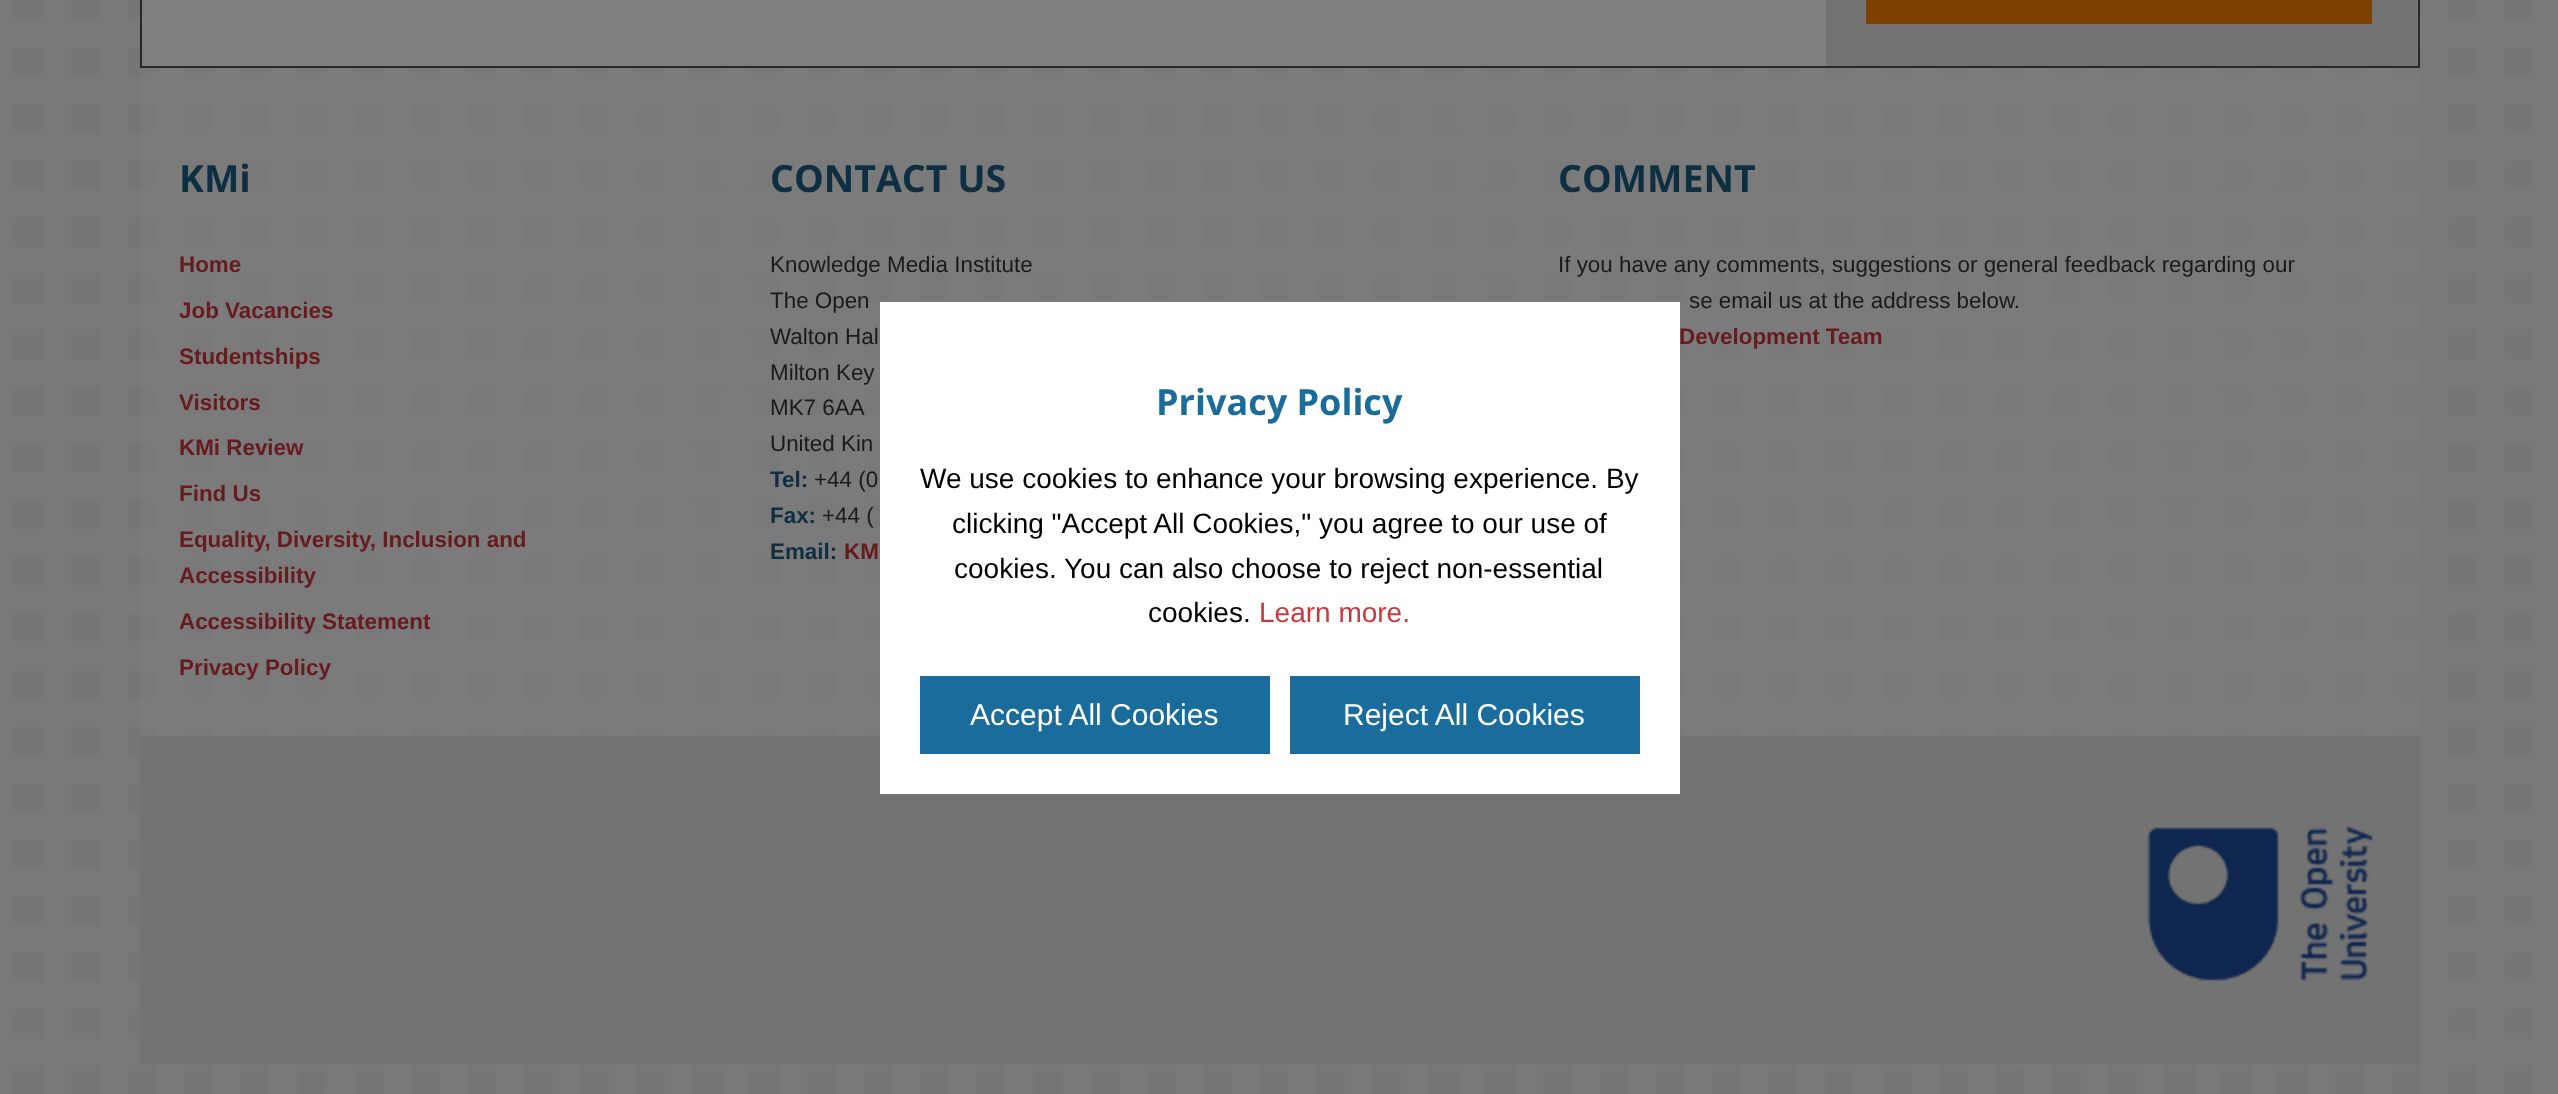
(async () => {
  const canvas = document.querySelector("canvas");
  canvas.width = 2558;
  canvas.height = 1094;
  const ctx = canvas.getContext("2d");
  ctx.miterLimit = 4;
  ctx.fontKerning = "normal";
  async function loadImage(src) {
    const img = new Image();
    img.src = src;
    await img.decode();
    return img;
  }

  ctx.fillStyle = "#ffffff";
  ctx.fillRect(0, 0, 2558, 1094);
  ctx.drawImage(await loadImage("img/1.png"), 0, 0, 2558, 1094);
  for (const [x, y, w, h, color] of [
    [1826, 0, 592, 66, "#737373"],
    [2418, 0, 2, 68, "#282a2a"],
    [140, 66, 2280, 2, "#282a2a"],
    [140, 0, 2, 68, "#282a2a"],
    [142, 0, 1684, 66, "#808080"],
    [1866, 0, 506, 24, "#7e4000"],
    [140, 68, 2278, 668, "rgba(128, 128, 128, 0.4)"],
    [2418, 68, 2, 668, "#7c7c7c"],
    [140, 736, 2280, 328, "#737373"],
  ]) {
    ctx.fillStyle = color;
    ctx.fillRect(x, y, w, h);
  }
  ctx.drawImage(await loadImage("img/2.png"), 2147, 825, 226, 156);
  for (const [x, y, w, h, color] of [
    [880, 302, 800, 492, "#ffffff"],
    [920, 676, 350, 78, "#196c9b"],
    [1290, 676, 350, 78, "#196c9b"],
  ]) {
    ctx.fillStyle = color;
    ctx.fillRect(x, y, w, h);
  }
  ctx.font = "bold 37.5px Open Sans";
  ctx.fillStyle = "#0e2e41";
  ctx.fillText("KMi", 179, 192);
  ctx.font = "bold 22.4px Liberation Sans";
  ctx.fillStyle = "#671b1e";
  for (const [text, x, y] of [
    ["Home", 179, 272],
    ["Job Vacancies", 179, 318],
    ["Studentships", 179, 364],
    ["Visitors", 179, 410],
    ["KMi Review", 179, 455],
    ["Find Us", 179, 501],
    ["Equality, Diversity, Inclusion and", 179, 547],
    ["Accessibility", 179, 583],
    ["Accessibility Statement", 179, 629],
    ["Privacy Policy", 179, 675],
  ]) {
    ctx.fillText(text, x, y);
  }
  ctx.font = "bold 37.5px Open Sans";
  ctx.fillStyle = "#0e2e41";
  ctx.fillText("CONTACT US", 770, 192);
  ctx.font = "22.4px Liberation Sans";
  ctx.fillStyle = "#1a1a1a";
  for (const [text, x, y] of [
    ["Knowledge Media Institute", 770, 272],
    ["The Open", 770, 308],
    ["Walton Hal", 770, 344],
    ["Milton Key", 770, 380],
    ["MK7 6AA", 770, 415],
    ["United Kin", 770, 451],
  ]) {
    ctx.fillText(text, x, y);
  }
  ctx.font = "bold 22.4px Liberation Sans";
  ctx.fillStyle = "#0e2e41";
  ctx.fillText("Tel:", 770, 487);
  ctx.font = "22.4px Liberation Sans";
  ctx.fillStyle = "#1a1a1a";
  ctx.fillText("+44 (0", 814, 487);
  ctx.font = "bold 22.4px Liberation Sans";
  ctx.fillStyle = "#0e2e41";
  ctx.fillText("Fax:", 770, 523);
  ctx.font = "22.4px Liberation Sans";
  ctx.fillStyle = "#1a1a1a";
  ctx.fillText("+44 (", 822, 523);
  ctx.font = "bold 22.4px Liberation Sans";
  ctx.fillStyle = "#0e2e41";
  ctx.fillText("Email:", 770, 559);
  ctx.fillStyle = "#671b1e";
  ctx.fillText("KM", 844, 559);
  ctx.font = "bold 37.5px Open Sans";
  ctx.fillStyle = "#0e2e41";
  ctx.fillText("COMMENT", 1558, 192);
  ctx.font = "22.4px Liberation Sans";
  ctx.fillStyle = "#1a1a1a";
  ctx.fillText("If you have any comments, suggestions or general feedback regarding our", 1558, 272);
  ctx.fillText("se email us at the address below.", 1689, 308);
  ctx.font = "bold 22.4px Liberation Sans";
  ctx.fillStyle = "#671b1e";
  ctx.fillText("Development Team", 1679, 344);
  ctx.font = "bold 36px Open Sans";
  ctx.fillStyle = "#196c9b";
  ctx.fillText("Privacy Policy", 1156, 415);
  ctx.font = "28px Liberation Sans";
  ctx.fillStyle = "#000000";
  for (const [text, x, y] of [
    ["We use cookies to enhance your browsing experience. By", 920, 488],
    ["clicking \"Accept All Cookies,\" you agree to our use of", 952, 533],
    ["cookies. You can also choose to reject non-essential", 954, 578],
    ["cookies.", 1148, 622],
  ]) {
    ctx.fillText(text, x, y);
  }
  ctx.fillStyle = "#ce363c";
  ctx.fillText("Learn more.", 1259, 622);
  ctx.font = "30px Liberation Sans";
  ctx.fillStyle = "#ffffff";
  ctx.fillText("Accept All Cookies", 970, 725);
  ctx.fillText("Reject All Cookies", 1343, 725);
})();
